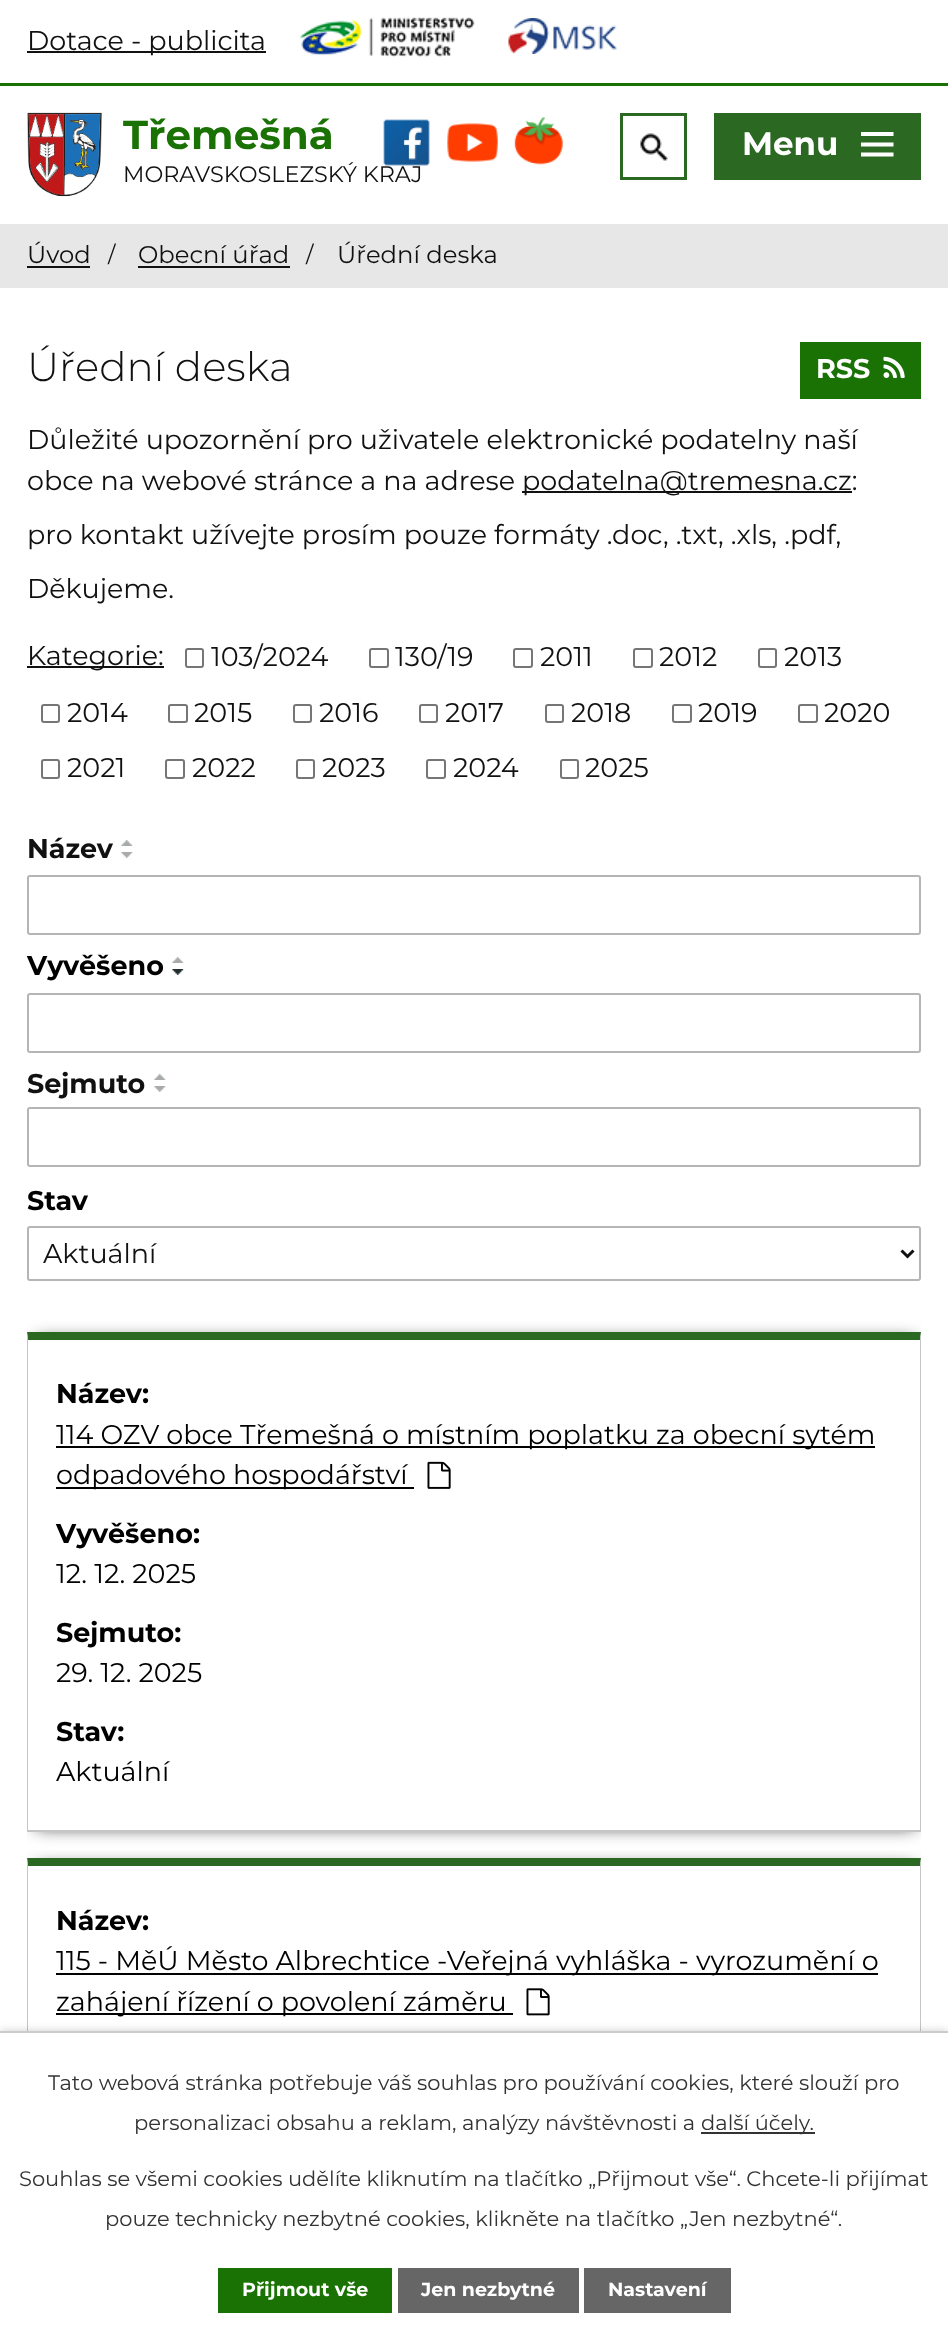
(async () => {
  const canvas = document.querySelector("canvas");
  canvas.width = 948;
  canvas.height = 2341;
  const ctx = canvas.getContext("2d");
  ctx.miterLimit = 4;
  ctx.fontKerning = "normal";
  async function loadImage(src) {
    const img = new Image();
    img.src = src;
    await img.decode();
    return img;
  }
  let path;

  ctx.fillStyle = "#ffffff";
  ctx.fillRect(0, 0, 948, 2341);
  ctx.fillStyle = "#1a7204";
  ctx.fillRect(0, 83, 948, 3);
  ctx.fillStyle = "#111111";
  ctx.fillRect(27, 51, 239, 2);
  ctx.drawImage(await loadImage("img/1.png"), 299, 17, 176, 40);
  ctx.drawImage(await loadImage("img/2.png"), 508, 18, 109, 36);
  ctx.drawImage(await loadImage("img/4.png"), 447, 123, 51, 39);
  ctx.drawImage(await loadImage("img/5.png"), 514, 117, 49, 48);
  ctx.strokeStyle = "#2b6923";
  ctx.lineWidth = 3;
  ctx.strokeRect(621.5, 114.5, 64, 64);
  ctx.drawImage(await loadImage("img/6.png"), 640, 133, 28, 28);
  ctx.drawImage(await loadImage("img/7.png"), 27, 112, 75, 85);
  ctx.fillStyle = "#2b6923";
  ctx.fillRect(714, 113, 207, 67);
  ctx.fillStyle = "#ffffff";
  path = new Path2D("M861 156.5V152.5H893.5V156.5ZM861 132H893.5V136H861ZM861 146.5V142.5H893.5V146.5Z");
  ctx.fill(path);
  for (const [x, y, w, h, color] of [
    [0, 224, 948, 64, "#e7e7e7"],
    [27, 266, 63, 2, "#111111"],
    [138, 266, 152, 2, "#111111"],
    [800, 342, 121, 57, "#1a7204"],
  ]) {
    ctx.fillStyle = color;
    ctx.fillRect(x, y, w, h);
  }
  ctx.drawImage(await loadImage("img/8.png"), 883, 356, 22, 22);
  ctx.fillStyle = "#111111";
  ctx.fillRect(522, 491, 330, 2);
  ctx.fillRect(27, 666, 137, 2);
  ctx.beginPath();
  ctx.roundRect(186, 649, 17, 18, 2);
  ctx.strokeStyle = "#767676";
  ctx.lineWidth = 2;
  ctx.stroke();
  ctx.beginPath();
  ctx.roundRect(370, 649, 18, 18, 2);
  ctx.stroke();
  ctx.beginPath();
  ctx.roundRect(514, 649, 18, 18, 2);
  ctx.stroke();
  ctx.beginPath();
  ctx.roundRect(634, 649, 18, 18, 2);
  ctx.stroke();
  ctx.beginPath();
  ctx.roundRect(759, 649, 17, 18, 2);
  ctx.stroke();
  ctx.beginPath();
  ctx.roundRect(42, 705, 17, 17, 2);
  ctx.stroke();
  ctx.beginPath();
  ctx.roundRect(169, 705, 18, 17, 2);
  ctx.stroke();
  ctx.beginPath();
  ctx.roundRect(294, 705, 17, 17, 2);
  ctx.stroke();
  ctx.beginPath();
  ctx.roundRect(420, 705, 17, 17, 2);
  ctx.stroke();
  ctx.beginPath();
  ctx.roundRect(546, 705, 17, 17, 2);
  ctx.stroke();
  ctx.beginPath();
  ctx.roundRect(673, 705, 18, 17, 2);
  ctx.stroke();
  ctx.beginPath();
  ctx.roundRect(799, 705, 18, 17, 2);
  ctx.stroke();
  ctx.beginPath();
  ctx.roundRect(42, 760, 17, 18, 2);
  ctx.stroke();
  ctx.beginPath();
  ctx.roundRect(166, 760, 18, 18, 2);
  ctx.stroke();
  ctx.beginPath();
  ctx.roundRect(297, 760, 17, 18, 2);
  ctx.stroke();
  ctx.beginPath();
  ctx.roundRect(427, 760, 18, 18, 2);
  ctx.stroke();
  ctx.beginPath();
  ctx.roundRect(561, 760, 17, 18, 2);
  ctx.stroke();
  ctx.drawImage(await loadImage("img/9.png"), 121, 840, 12, 6);
  ctx.drawImage(await loadImage("img/10.png"), 121, 852, 12, 6);
  ctx.drawImage(await loadImage("img/9.png"), 172, 957, 12, 6);
  ctx.drawImage(await loadImage("img/11.png"), 172, 969, 12, 6);
  ctx.drawImage(await loadImage("img/9.png"), 154, 1074, 12, 6);
  ctx.drawImage(await loadImage("img/10.png"), 154, 1086, 12, 6);
  ctx.beginPath();
  ctx.roundRect(28, 876, 892, 58, 2);
  ctx.strokeStyle = "#b5b5b5";
  ctx.stroke();
  ctx.beginPath();
  ctx.roundRect(28, 994, 892, 58, 2);
  ctx.stroke();
  ctx.beginPath();
  ctx.roundRect(28, 1108, 892, 58, 2);
  ctx.stroke();
  ctx.beginPath();
  ctx.roundRect(28, 1227, 892, 53, 2);
  ctx.stroke();
  path = new Path2D("M901.5 1250.5L907.5 1256.5L913.5 1250.5");
  ctx.strokeStyle = "#111111";
  ctx.lineWidth = 3;
  ctx.stroke(path);
  ctx.save();
  ctx.beginPath();
  ctx.rect(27, 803, 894, 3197);
  ctx.clip();
  path = new Path2D("M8 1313H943V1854H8ZM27 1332H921V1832H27Z");
  ctx.clip(path, "evenodd");
  ctx.filter = "blur(9px)";
  ctx.beginPath();
  ctx.rect(36, 1341, 879, 485);
  ctx.fill();
  ctx.filter = "none";
  ctx.restore();
  ctx.fillStyle = "#2b6923";
  path = new Path2D("M27 1332H921L920 1340H28Z");
  ctx.fill(path);
  ctx.fillStyle = "#c5c5c5";
  path = new Path2D("M921 1332V1832L920 1830V1340Z");
  ctx.fill(path);
  ctx.fillRect(27, 1830, 894, 2);
  path = new Path2D("M27 1832V1332L28 1340V1830Z");
  ctx.fill(path);
  ctx.fillStyle = "#000000";
  ctx.fillRect(56, 1446, 819, 2);
  ctx.fillRect(56, 1487, 358, 2);
  ctx.drawImage(await loadImage("img/12.png"), 427, 1461, 24, 28);
  ctx.save();
  ctx.beginPath();
  ctx.rect(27, 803, 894, 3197);
  ctx.clip();
  ctx.beginPath();
  ctx.rect(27, 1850, 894, 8);
  ctx.clip();
  ctx.fillStyle = "#111111";
  ctx.filter = "blur(9px)";
  ctx.beginPath();
  ctx.rect(36, 1868, 879, 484);
  ctx.fill();
  ctx.filter = "none";
  ctx.restore();
  ctx.fillStyle = "#2b6923";
  path = new Path2D("M27 1858H921L920 1866H28Z");
  ctx.fill(path);
  ctx.fillStyle = "#c5c5c5";
  path = new Path2D("M921 1858V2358L920 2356V1866Z");
  ctx.fill(path);
  path = new Path2D("M27 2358V1858L28 1866V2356Z");
  ctx.fill(path);
  ctx.fillStyle = "#000000";
  ctx.fillRect(56, 1973, 822, 2);
  ctx.fillRect(56, 2013, 457, 2);
  ctx.drawImage(await loadImage("img/13.png"), 526, 1988, 24, 28);
  ctx.fillStyle = "rgba(0, 0, 0, 0.2)";
  ctx.filter = "blur(4px)";
  ctx.beginPath();
  ctx.rect(0, 2031, 948, 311);
  ctx.fill();
  ctx.filter = "none";
  for (const [x, y, w, h, color] of [
    [0, 2033, 948, 308, "#ffffff"],
    [0, 2031, 948, 2, "#cccccc"],
    [701, 2132, 114, 2, "#333333"],
    [218, 2268, 174, 45, "#1a7204"],
    [398, 2268, 181, 45, "#666666"],
    [584, 2268, 147, 45, "#666666"],
  ]) {
    ctx.fillStyle = color;
    ctx.fillRect(x, y, w, h);
  }
  ctx.font = "27px Montserrat";
  ctx.fillStyle = "#111111";
  ctx.fillText("Dotace - publicita", 27, 50);
  ctx.font = "bold 40.5px Montserrat";
  ctx.fillStyle = "#1a7204";
  ctx.fillText("Třemešná", 123, 149);
  ctx.font = "22.4px Montserrat";
  ctx.fillStyle = "#111111";
  ctx.fillText("MORAVSKOSLEZSKÝ KRAJ", 123, 182);
  ctx.drawImage(await loadImage("img/3.png"), 383, 119, 47, 47);
  ctx.font = "bold 32.5px Montserrat";
  ctx.fillStyle = "#ffffff";
  ctx.fillText("Menu", 742, 155);
  ctx.font = "24.25px Montserrat";
  ctx.fillStyle = "#111111";
  ctx.fillText("Úvod", 27, 263);
  ctx.font = "22px Montserrat";
  ctx.fillText("/", 108, 262);
  ctx.font = "24.25px Montserrat";
  ctx.fillText("Obecní úřad", 138, 263);
  ctx.font = "22px Montserrat";
  ctx.fillText("/", 306, 262);
  ctx.font = "24.25px Montserrat";
  ctx.fillText("Úřední deska", 337, 263);
  ctx.font = "300 40.5px Montserrat";
  ctx.fillText("Úřední deska", 27, 381);
  ctx.font = "bold 27px Montserrat";
  ctx.fillStyle = "#ffffff";
  ctx.fillText("RSS", 816, 378);
  ctx.font = "27px Montserrat";
  ctx.fillStyle = "#111111";
  for (const [text, x, y] of [
    ["Důležité upozornění pro uživatele elektronické podatelny naší", 27, 449],
    ["obce na webové stránce a na adrese", 27, 490],
    ["podatelna@tremesna.cz:", 522, 490],
    ["pro kontakt užívejte prosím pouze formáty .doc, .txt, .xls, .pdf,", 27, 544],
    ["Děkujeme.", 27, 598],
    ["Kategorie:", 27, 665],
    ["103/2024", 211, 666],
    ["130/19", 395, 666],
    ["2011", 540, 666],
    ["2012", 659, 666],
    ["2013", 784, 666],
    ["2014", 67, 722],
    ["2015", 194, 722],
    ["2016", 319, 722],
    ["2017", 445, 722],
    ["2018", 571, 722],
    ["2019", 698, 722],
    ["2020", 824, 722],
    ["2021", 67, 777],
    ["2022", 192, 777],
    ["2023", 322, 777],
    ["2024", 453, 777],
    ["2025", 585, 777],
  ]) {
    ctx.fillText(text, x, y);
  }
  ctx.font = "bold 27px Montserrat";
  ctx.fillText("Název", 27, 858);
  ctx.fillStyle = "#000000";
  ctx.fillText("Vyvěšeno", 27, 975);
  ctx.fillStyle = "#111111";
  ctx.fillText("Sejmuto", 27, 1093);
  ctx.fillStyle = "#000000";
  ctx.fillText("Stav", 27, 1210);
  ctx.font = "27px Montserrat";
  ctx.fillStyle = "#111111";
  ctx.fillText("Aktuální", 43, 1263);
  ctx.font = "bold 27px Montserrat";
  ctx.fillStyle = "#000000";
  ctx.fillText("Název:", 56, 1403);
  ctx.font = "27px Montserrat";
  ctx.fillText("114 OZV obce Třemešná o místním poplatku za obecní sytém", 56, 1444);
  ctx.fillText("odpadového hospodářství", 56, 1484);
  ctx.font = "bold 27px Montserrat";
  ctx.fillText("Vyvěšeno:", 56, 1543);
  ctx.font = "27px Montserrat";
  ctx.fillText("12. 12. 2025", 56, 1583);
  ctx.font = "bold 27px Montserrat";
  ctx.fillText("Sejmuto:", 56, 1642);
  ctx.font = "27px Montserrat";
  ctx.fillText("29. 12. 2025", 56, 1682);
  ctx.font = "bold 27px Montserrat";
  ctx.fillText("Stav:", 56, 1741);
  ctx.font = "27px Montserrat";
  ctx.fillText("Aktuální", 56, 1781);
  ctx.font = "bold 27px Montserrat";
  ctx.fillText("Název:", 56, 1930);
  ctx.font = "27px Montserrat";
  ctx.fillText("115 - MěÚ Město Albrechtice -Veřejná vyhláška - vyrozumění o", 56, 1970);
  ctx.fillText("zahájení řízení o povolení záměru", 56, 2011);
  ctx.font = "21px Montserrat";
  ctx.fillStyle = "#333333";
  for (const [text, x, y] of [
    ["Tato webová stránka potřebuje váš souhlas pro používání cookies, které slouží pro", 48, 2090],
    ["personalizaci obsahu a reklam, analýzy návštěvnosti a", 134, 2130],
    ["další účely.", 701, 2130],
    ["Souhlas se všemi cookies udělíte kliknutím na tlačítko „Přijmout vše“. Chcete-li přijímat", 19, 2186],
    ["pouze technicky nezbytné cookies, klikněte na tlačítko „Jen nezbytné“.", 105, 2226],
  ]) {
    ctx.fillText(text, x, y);
  }
  ctx.font = "bold 19px Montserrat";
  ctx.fillStyle = "#ffffff";
  for (const [text, x, y] of [
    ["Přijmout vše", 242, 2296],
    ["Jen nezbytné", 421, 2296],
    ["Nastavení", 608, 2296],
  ]) {
    ctx.fillText(text, x, y);
  }
})();
